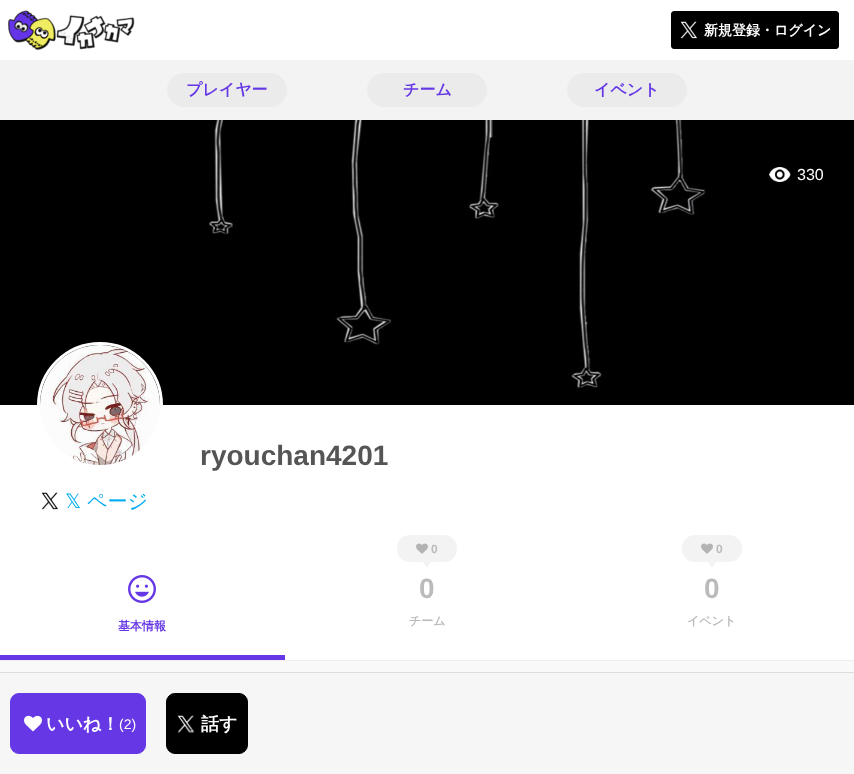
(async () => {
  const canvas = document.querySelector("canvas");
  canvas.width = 854;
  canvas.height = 774;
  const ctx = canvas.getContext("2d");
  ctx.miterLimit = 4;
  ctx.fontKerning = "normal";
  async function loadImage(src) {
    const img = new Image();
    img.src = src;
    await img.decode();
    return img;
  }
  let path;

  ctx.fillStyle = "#f9f9f9";
  ctx.fillRect(0, 0, 854, 774);
  ctx.fillStyle = "#ffffff";
  ctx.fillRect(0, 0, 854, 60);
  ctx.drawImage(await loadImage("img/1.png"), 8, 10, 127, 40);
  ctx.fillStyle = "#000000";
  ctx.beginPath();
  ctx.roundRect(671.5, 11.5, 167, 37, 2.5);
  ctx.fill();
  ctx.strokeStyle = "#000000";
  ctx.stroke();
  ctx.drawImage(await loadImage("img/2.png"), 680, 21, 17, 18);
  ctx.fillStyle = "#f3f3f3";
  ctx.fillRect(0, 60, 854, 60);
  ctx.fillStyle = "#ebebeb";
  ctx.beginPath();
  ctx.roundRect(167, 73, 120, 34, 17);
  ctx.fill();
  ctx.beginPath();
  ctx.roundRect(367, 73, 120, 34, 17);
  ctx.fill();
  ctx.beginPath();
  ctx.roundRect(567, 73, 120, 34, 17);
  ctx.fill();
  ctx.drawImage(await loadImage("img/3.png"), 0, 120, 854, 285);
  ctx.drawImage(await loadImage("img/4.png"), 769, 167, 22, 15);
  ctx.fillStyle = "#ffffff";
  ctx.fillRect(0, 405, 854, 255);
  ctx.beginPath();
  ctx.arc(100, 405, 61.5, 0, Math.PI * 2);
  ctx.strokeStyle = "#ffffff";
  ctx.lineWidth = 3;
  ctx.stroke();
  ctx.drawImage(await loadImage("img/5.png"), 40, 345, 120, 120);
  ctx.drawImage(await loadImage("img/6.png"), 41, 492, 17, 18);
  ctx.fillStyle = "#eeeeee";
  ctx.fillRect(0, 660, 854, 1);
  ctx.drawImage(await loadImage("img/7.png"), 128, 575, 28, 28);
  ctx.fillStyle = "#6537e5";
  ctx.fillRect(0, 655, 285, 5);
  ctx.fillStyle = "#f3f3f3";
  ctx.beginPath();
  ctx.roundRect(397, 535, 60, 27, 13);
  ctx.fill();
  ctx.drawImage(await loadImage("img/8.png"), 416, 543, 12, 11);
  path = new Path2D("M423 562H431L427 568Z");
  ctx.fill(path);
  ctx.beginPath();
  ctx.roundRect(682, 535, 60, 27, 13);
  ctx.fill();
  ctx.drawImage(await loadImage("img/8.png"), 701, 543, 12, 11);
  path = new Path2D("M708 562H716L712 568Z");
  ctx.fill(path);
  ctx.fillStyle = "#f6f6f6";
  ctx.fillRect(0, 673, 854, 101);
  ctx.fillStyle = "#dddddd";
  ctx.fillRect(0, 672, 854, 1);
  ctx.fillStyle = "#6537e5";
  ctx.beginPath();
  ctx.roundRect(10.5, 693.5, 135, 60, 8.5);
  ctx.fill();
  ctx.strokeStyle = "#6537e5";
  ctx.lineWidth = 1;
  ctx.stroke();
  ctx.drawImage(await loadImage("img/9.png"), 24, 715, 18, 17);
  ctx.fillStyle = "#000000";
  ctx.beginPath();
  ctx.roundRect(166.5, 693.5, 81, 60, 8.5);
  ctx.fill();
  ctx.strokeStyle = "#000000";
  ctx.stroke();
  ctx.drawImage(await loadImage("img/10.png"), 177, 715, 18, 18);
  ctx.font = "bold 14px WenQuanYi Zen Hei";
  ctx.fillStyle = "#ffffff";
  ctx.fillText("新規登録・ログイン", 704, 35);
  ctx.font = "bold 16px WenQuanYi Zen Hei";
  ctx.fillStyle = "#6537e5";
  for (const [text, x, y] of [
    ["プレイヤー", 186, 95],
    ["チーム", 403, 95],
    ["イベント", 594, 95],
  ]) {
    ctx.fillText(text, x, y);
  }
  ctx.font = "16px Liberation Sans";
  ctx.fillStyle = "#ffffff";
  ctx.fillText("330", 797, 180);
  ctx.font = "bold 28px Liberation Sans";
  ctx.fillStyle = "#555555";
  ctx.fillText("ryouchan4201", 200, 465);
  ctx.font = "20px DejaVu Sans";
  ctx.fillStyle = "#00aced";
  ctx.fillText("𝕏", 65, 508);
  ctx.font = "500 20px WenQuanYi Zen Hei";
  ctx.fillText("ページ", 87, 508);
  ctx.font = "bold 12px WenQuanYi Zen Hei";
  ctx.fillStyle = "#6537e5";
  ctx.fillText("基本情報", 118, 630);
  ctx.font = "bold 12px Liberation Sans";
  ctx.fillStyle = "#bbbbbb";
  ctx.fillText("0", 431, 553);
  ctx.font = "bold 28px Liberation Sans";
  ctx.fillText("0", 419, 598);
  ctx.font = "bold 12px WenQuanYi Zen Hei";
  ctx.fillText("チーム", 409, 625);
  ctx.font = "bold 12px Liberation Sans";
  ctx.fillText("0", 716, 553);
  ctx.font = "bold 28px Liberation Sans";
  ctx.fillText("0", 704, 598);
  ctx.font = "bold 12px WenQuanYi Zen Hei";
  ctx.fillText("イベント", 687, 625);
  ctx.font = "bold 18px WenQuanYi Zen Hei";
  ctx.fillStyle = "#ffffff";
  ctx.fillText("いいね！", 46, 730);
  ctx.font = "14px Liberation Sans";
  ctx.fillText("(2)", 119, 729);
  ctx.font = "bold 18px WenQuanYi Zen Hei";
  ctx.fillText("話す", 201, 730);
})();
